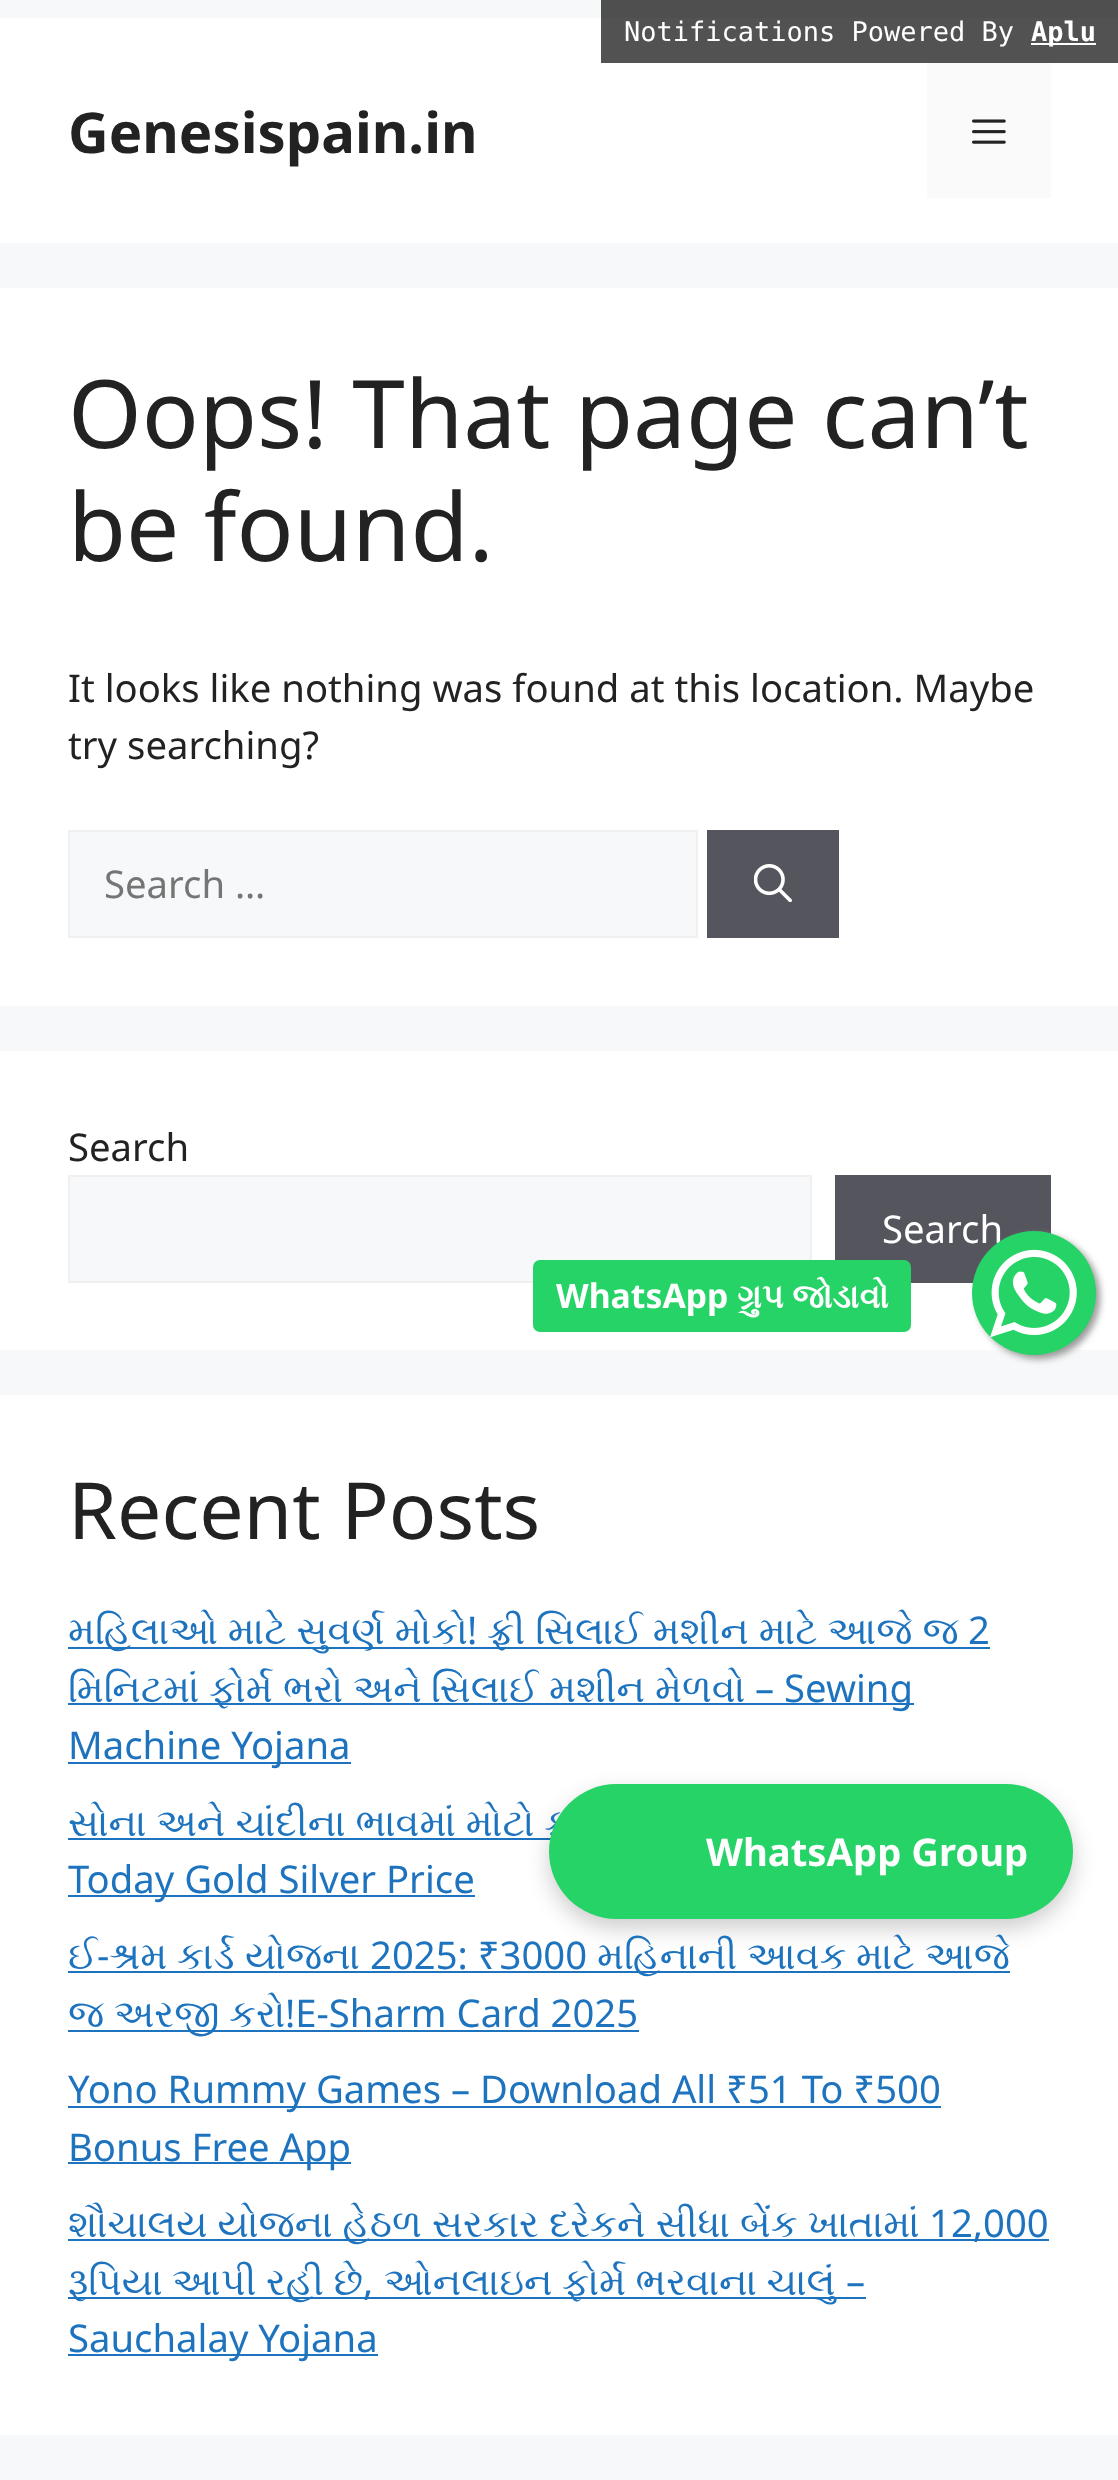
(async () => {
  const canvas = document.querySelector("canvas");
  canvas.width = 1118;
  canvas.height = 2480;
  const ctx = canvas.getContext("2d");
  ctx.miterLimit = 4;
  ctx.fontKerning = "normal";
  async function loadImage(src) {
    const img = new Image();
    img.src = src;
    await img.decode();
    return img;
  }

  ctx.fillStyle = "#f7f8f9";
  ctx.fillRect(0, 0, 1118, 2480);
  for (const [x, y, w, h, color] of [
    [601, 0, 517, 18, "#4f4f50"],
    [0, 18, 1118, 225, "#ffffff"],
    [601, 18, 517, 45, "#525252"],
    [1031, 43, 65, 2, "#ffffff"],
    [927, 63, 124, 135, "#fafafa"],
  ]) {
    ctx.fillStyle = color;
    ctx.fillRect(x, y, w, h);
  }
  ctx.drawImage(await loadImage("img/1.png"), 972, 119, 34, 25);
  ctx.fillStyle = "#ffffff";
  ctx.fillRect(0, 288, 1118, 718);
  ctx.fillStyle = "#f7f8f9";
  ctx.beginPath();
  ctx.rect(69, 831, 628, 106);
  ctx.fill();
  ctx.strokeStyle = "#f0f0f0";
  ctx.lineWidth = 2;
  ctx.stroke();
  ctx.fillStyle = "#55555e";
  ctx.fillRect(707, 830, 132, 108);
  ctx.drawImage(await loadImage("img/2.png"), 754, 864, 38, 38);
  ctx.fillStyle = "#ffffff";
  ctx.fillRect(0, 1051, 1118, 299);
  ctx.fillStyle = "#f7f8f9";
  ctx.beginPath();
  ctx.rect(69, 1176, 742, 106);
  ctx.fill();
  ctx.stroke();
  for (const [x, y, w, h, color] of [
    [835, 1175, 216, 108, "#55555e"],
    [0, 1395, 1118, 1040, "#ffffff"],
    [68, 1647, 922, 2, "#1e73be"],
    [68, 1703, 846, 2, "#1e73be"],
    [68, 1762, 283, 2, "#1e73be"],
    [68, 1838, 483, 2, "#1e73be"],
    [68, 1895, 407, 2, "#1e73be"],
    [68, 1971, 942, 2, "#1e73be"],
    [68, 2030, 571, 2, "#1e73be"],
    [68, 2106, 873, 2, "#1e73be"],
    [68, 2162, 283, 2, "#1e73be"],
    [68, 2239, 981, 2, "#1e73be"],
    [68, 2297, 798, 2, "#1e73be"],
    [68, 2354, 310, 2, "#1e73be"],
  ]) {
    ctx.fillStyle = color;
    ctx.fillRect(x, y, w, h);
  }
  ctx.fillStyle = "#999999";
  ctx.filter = "blur(3.5px)";
  ctx.beginPath();
  ctx.roundRect(977, 1235, 123, 124, 61.5);
  ctx.fill();
  ctx.filter = "none";
  ctx.fillStyle = "#25d366";
  ctx.beginPath();
  ctx.roundRect(533, 1260, 378, 72, 7);
  ctx.fill();
  ctx.fillStyle = "rgba(0, 0, 0, 0.2)";
  ctx.filter = "blur(11px)";
  ctx.beginPath();
  ctx.roundRect(549, 1793, 524, 135, 67.5);
  ctx.fill();
  ctx.filter = "none";
  ctx.font = "27px DejaVu Sans Mono";
  ctx.fillStyle = "#ffffff";
  ctx.fillText("Notifications Powered By", 624, 41);
  ctx.font = "bold 27px DejaVu Sans Mono";
  ctx.fillText("Aplu", 1031, 41);
  ctx.font = "bold 56.25px Noto Sans";
  ctx.fillStyle = "#222222";
  ctx.fillText("Genesispain.in", 68, 153);
  ctx.font = "94.5px Noto Sans";
  ctx.fillText("Oops! That page can’t", 68, 448);
  ctx.fillText("be found.", 68, 561);
  ctx.font = "38.25px Noto Sans";
  ctx.fillText("It looks like nothing was found at this location. Maybe", 68, 702);
  ctx.fillText("try searching?", 68, 759);
  ctx.fillStyle = "#757575";
  ctx.fillText("Search …", 104, 898);
  ctx.fillStyle = "#222222";
  ctx.fillText("Search", 68, 1161);
  ctx.fillStyle = "#ffffff";
  ctx.fillText("Search", 882, 1243);
  ctx.font = "78.75px Noto Sans";
  ctx.fillStyle = "#222222";
  ctx.fillText("Recent Posts", 68, 1539);
  ctx.wordSpacing = "0.5px";
  ctx.font = "38.25px FreeSerif";
  ctx.fillStyle = "#1e73be";
  ctx.fillText("મહિલાઓ માટે સુવર્ણ મોકો", 68, 1644);
  ctx.wordSpacing = "0px";
  ctx.font = "38.25px Noto Sans";
  ctx.fillText("!", 467, 1644);
  ctx.wordSpacing = "0.5px";
  ctx.font = "38.25px FreeSerif";
  ctx.fillText("ફ્રી સિલાઈ મશીન માટે આજે જ", 487, 1644);
  ctx.wordSpacing = "0px";
  ctx.font = "38.25px Noto Sans";
  ctx.fillText("2", 968, 1644);
  ctx.font = "38.25px FreeSerif";
  for (const [text, x, y] of [
    ["મિનિટમાં", 68, 1702],
    ["ફોર્મ", 209, 1702],
    ["ભરો", 283, 1702],
    ["અને", 353, 1702],
    ["સિલાઈ", 431, 1702],
    ["મશીન", 549, 1702],
    ["મેળવો", 655, 1702],
  ]) {
    ctx.fillText(text, x, y);
  }
  ctx.font = "38.25px Noto Sans";
  ctx.fillText("– Sewing", 755, 1702);
  ctx.fillText("Machine Yojana", 68, 1759);
  ctx.wordSpacing = "0.5px";
  ctx.font = "38.25px FreeSerif";
  ctx.fillText("સોના અને ચાંદીના ભાવમાં મોટો ફ", 68, 1836);
  ctx.wordSpacing = "0px";
  ctx.font = "38.25px Noto Sans";
  ctx.fillText("Today Gold Silver Price", 68, 1893);
  ctx.font = "38.25px FreeSerif";
  ctx.fillText("ઈ", 68, 1969);
  ctx.font = "38.25px Noto Sans";
  ctx.fillText("-", 97, 1969);
  ctx.font = "38.25px FreeSerif";
  for (const [text, x, y] of [
    ["શ્રમ", 109, 1969],
    ["કાર્ડ", 177, 1969],
    ["યોજના", 245, 1969],
  ]) {
    ctx.fillText(text, x, y);
  }
  ctx.font = "38.25px Noto Sans";
  ctx.fillText("2025: ₹3000", 370, 1969);
  ctx.font = "38.25px FreeSerif";
  for (const [text, x, y] of [
    ["મહિનાની", 597, 1969],
    ["આવક", 747, 1969],
    ["માટે", 856, 1969],
    ["આજે", 925, 1969],
    ["જ", 68, 2027],
    ["અરજી", 114, 2027],
    ["કરો", 229, 2027],
  ]) {
    ctx.fillText(text, x, y);
  }
  ctx.font = "38.25px Noto Sans";
  for (const [text, x, y] of [
    ["!E-Sharm Card 2025", 285, 2027],
    ["Yono Rummy Games – Download All ₹51 To ₹500", 68, 2103],
    ["Bonus Free App", 68, 2161],
  ]) {
    ctx.fillText(text, x, y);
  }
  ctx.wordSpacing = "0.5px";
  ctx.font = "38.25px FreeSerif";
  ctx.fillText("શૌચાલય યોજના હેઠળ સરકાર દરેકને સીધા બેંક ખાતામાં", 68, 2237);
  ctx.wordSpacing = "0px";
  ctx.font = "38.25px Noto Sans";
  ctx.fillText("12,000", 929, 2237);
  ctx.font = "38.25px FreeSerif";
  ctx.fillText("રૂપિયા આપી રહી છે", 68, 2295);
  ctx.fillText("ઓનલાઇન ફોર્મ ભરવાના ચાલું", 384, 2295);
  ctx.font = "38.25px Noto Sans";
  for (const [text, x, y] of [
    ["–", 846, 2295],
    [",", 363, 2295],
    ["Sauchalay Yojana", 68, 2352],
  ]) {
    ctx.fillText(text, x, y);
  }
  ctx.fillStyle = "#25d366";
  ctx.beginPath();
  ctx.arc(1034, 1293, 62, 0, Math.PI * 2);
  ctx.fill();
  ctx.font = "bold 33.75px Noto Sans";
  ctx.fillStyle = "#ffffff";
  ctx.fillText("WhatsApp", 556, 1308);
  ctx.font = "bold 33.75px FreeSerif";
  ctx.fillText("ગ્રુપ જોડાવો", 737, 1308);
  ctx.drawImage(await loadImage("img/3.png"), 990, 1249, 87, 89);
  ctx.fillStyle = "#25d366";
  ctx.beginPath();
  ctx.roundRect(549, 1784, 524, 135, 67.5);
  ctx.fill();
  ctx.font = "bold 38.25px Noto Sans";
  ctx.fillStyle = "#ffffff";
  ctx.fillText("WhatsApp Group", 706, 1866);
})();
